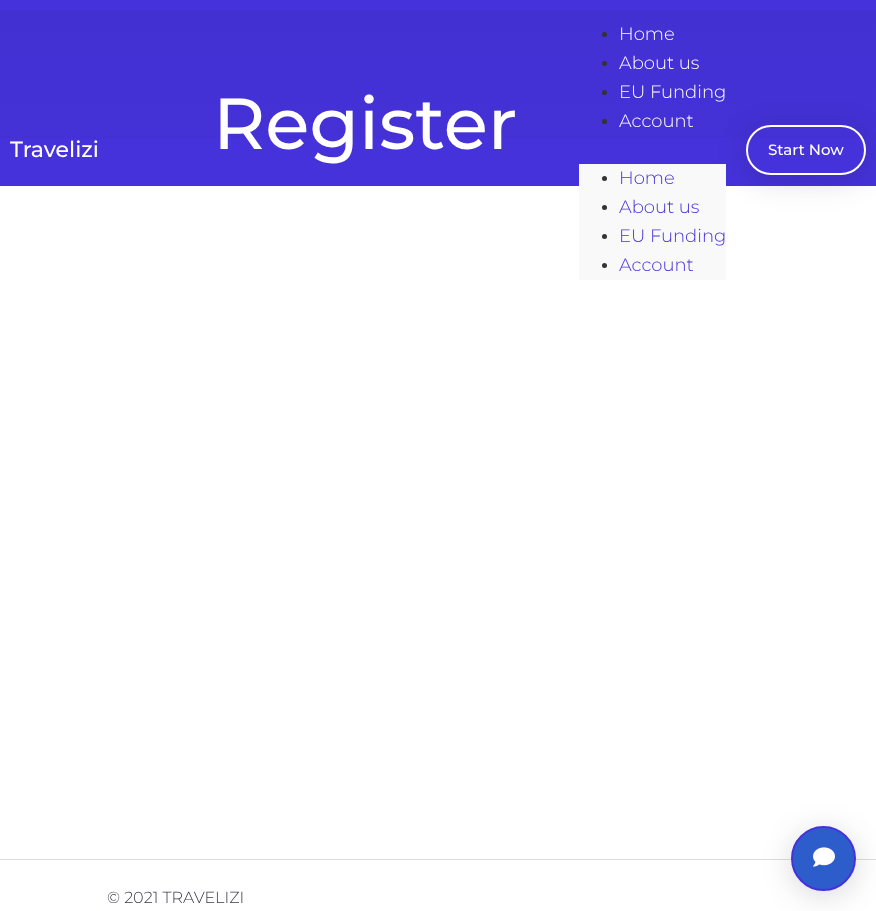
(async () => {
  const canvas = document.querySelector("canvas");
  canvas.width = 876;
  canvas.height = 911;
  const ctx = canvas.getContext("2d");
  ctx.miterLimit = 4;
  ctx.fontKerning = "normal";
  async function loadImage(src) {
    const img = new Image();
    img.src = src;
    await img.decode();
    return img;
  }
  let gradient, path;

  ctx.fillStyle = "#ffffff";
  ctx.fillRect(0, 0, 876, 911);
  ctx.fillStyle = "#4632da";
  ctx.fillRect(0, 0, 876, 186);
  gradient = ctx.createLinearGradient(438, 10, 438, 290);
  gradient.addColorStop(0, "rgba(6, 8, 36, 0.04)");
  gradient.addColorStop(1, "rgba(6, 8, 36, 0)");
  ctx.fillStyle = gradient;
  ctx.fillRect(0, 10, 876, 129);
  ctx.fillStyle = "#333333";
  ctx.beginPath();
  ctx.arc(604.5, 34.5, 2.5, 0, Math.PI * 2);
  ctx.fill();
  ctx.beginPath();
  ctx.arc(604.5, 63.5, 2.5, 0, Math.PI * 2);
  ctx.fill();
  ctx.beginPath();
  ctx.arc(604.5, 92.5, 2.5, 0, Math.PI * 2);
  ctx.fill();
  ctx.beginPath();
  ctx.arc(604.5, 121.5, 2.5, 0, Math.PI * 2);
  ctx.fill();
  ctx.fillStyle = "#f9f9f9";
  ctx.fillRect(579, 164, 147, 116);
  ctx.fillStyle = "#333333";
  ctx.beginPath();
  ctx.arc(604.5, 178.5, 2.5, 0, Math.PI * 2);
  ctx.fill();
  ctx.beginPath();
  ctx.arc(604.5, 207.5, 2.5, 0, Math.PI * 2);
  ctx.fill();
  ctx.beginPath();
  ctx.arc(604.5, 236.5, 2.5, 0, Math.PI * 2);
  ctx.fill();
  ctx.beginPath();
  ctx.arc(604.5, 265.5, 2.5, 0, Math.PI * 2);
  ctx.fill();
  ctx.save();
  path = new Path2D("M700 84H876V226H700ZM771 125H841C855 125 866 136 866 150C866 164 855 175 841 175H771C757 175 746 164 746 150C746 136 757 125 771 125Z");
  ctx.clip(path, "evenodd");
  ctx.fillStyle = "rgba(0, 0, 0, 0.15)";
  ctx.filter = "blur(15px)";
  ctx.beginPath();
  ctx.roundRect(746, 130, 120, 50, 25);
  ctx.fill();
  ctx.filter = "none";
  ctx.restore();
  ctx.beginPath();
  ctx.roundRect(747, 126, 118, 48, 24);
  ctx.strokeStyle = "#ffffff";
  ctx.lineWidth = 2;
  ctx.stroke();
  ctx.fillStyle = "#dddddd";
  ctx.fillRect(0, 859, 876, 1);
  ctx.fillStyle = "rgba(0, 0, 0, 0.15)";
  ctx.filter = "blur(15px)";
  ctx.beginPath();
  ctx.roundRect(791, 831, 65, 65, 32.5);
  ctx.fill();
  ctx.filter = "none";
  ctx.fillStyle = "#2c5dcb";
  ctx.beginPath();
  ctx.arc(823.5, 858.5, 31.5, 0, Math.PI * 2);
  ctx.fill();
  ctx.strokeStyle = "#4632da";
  ctx.stroke();
  ctx.drawImage(await loadImage("img/1.png"), 813, 847, 22, 20);
  ctx.font = "500 22px Montserrat";
  ctx.fillStyle = "#ffffff";
  ctx.fillText("Travelizi", 10, 157);
  ctx.font = "300 18px Montserrat";
  for (const [text, x, y] of [
    ["Home", 619, 40],
    ["About us", 619, 69],
    ["EU Funding", 619, 98],
    ["Account", 619, 127],
  ]) {
    ctx.fillText(text, x, y);
  }
  ctx.fillStyle = "#4632da";
  for (const [text, x, y] of [
    ["Home", 619, 184],
    ["About us", 619, 213],
    ["EU Funding", 619, 242],
    ["Account", 619, 271],
  ]) {
    ctx.fillText(text, x, y);
  }
  ctx.font = "500 15px Montserrat";
  ctx.fillStyle = "#ffffff";
  ctx.fillText("Start Now", 768, 155);
  ctx.font = "500 72px Montserrat";
  ctx.fillText("Register", 213, 149);
  ctx.font = "300 16px Montserrat";
  ctx.fillStyle = "#393a45";
  ctx.fillText("© 2021 TRAVELIZI", 107, 903);
})();
